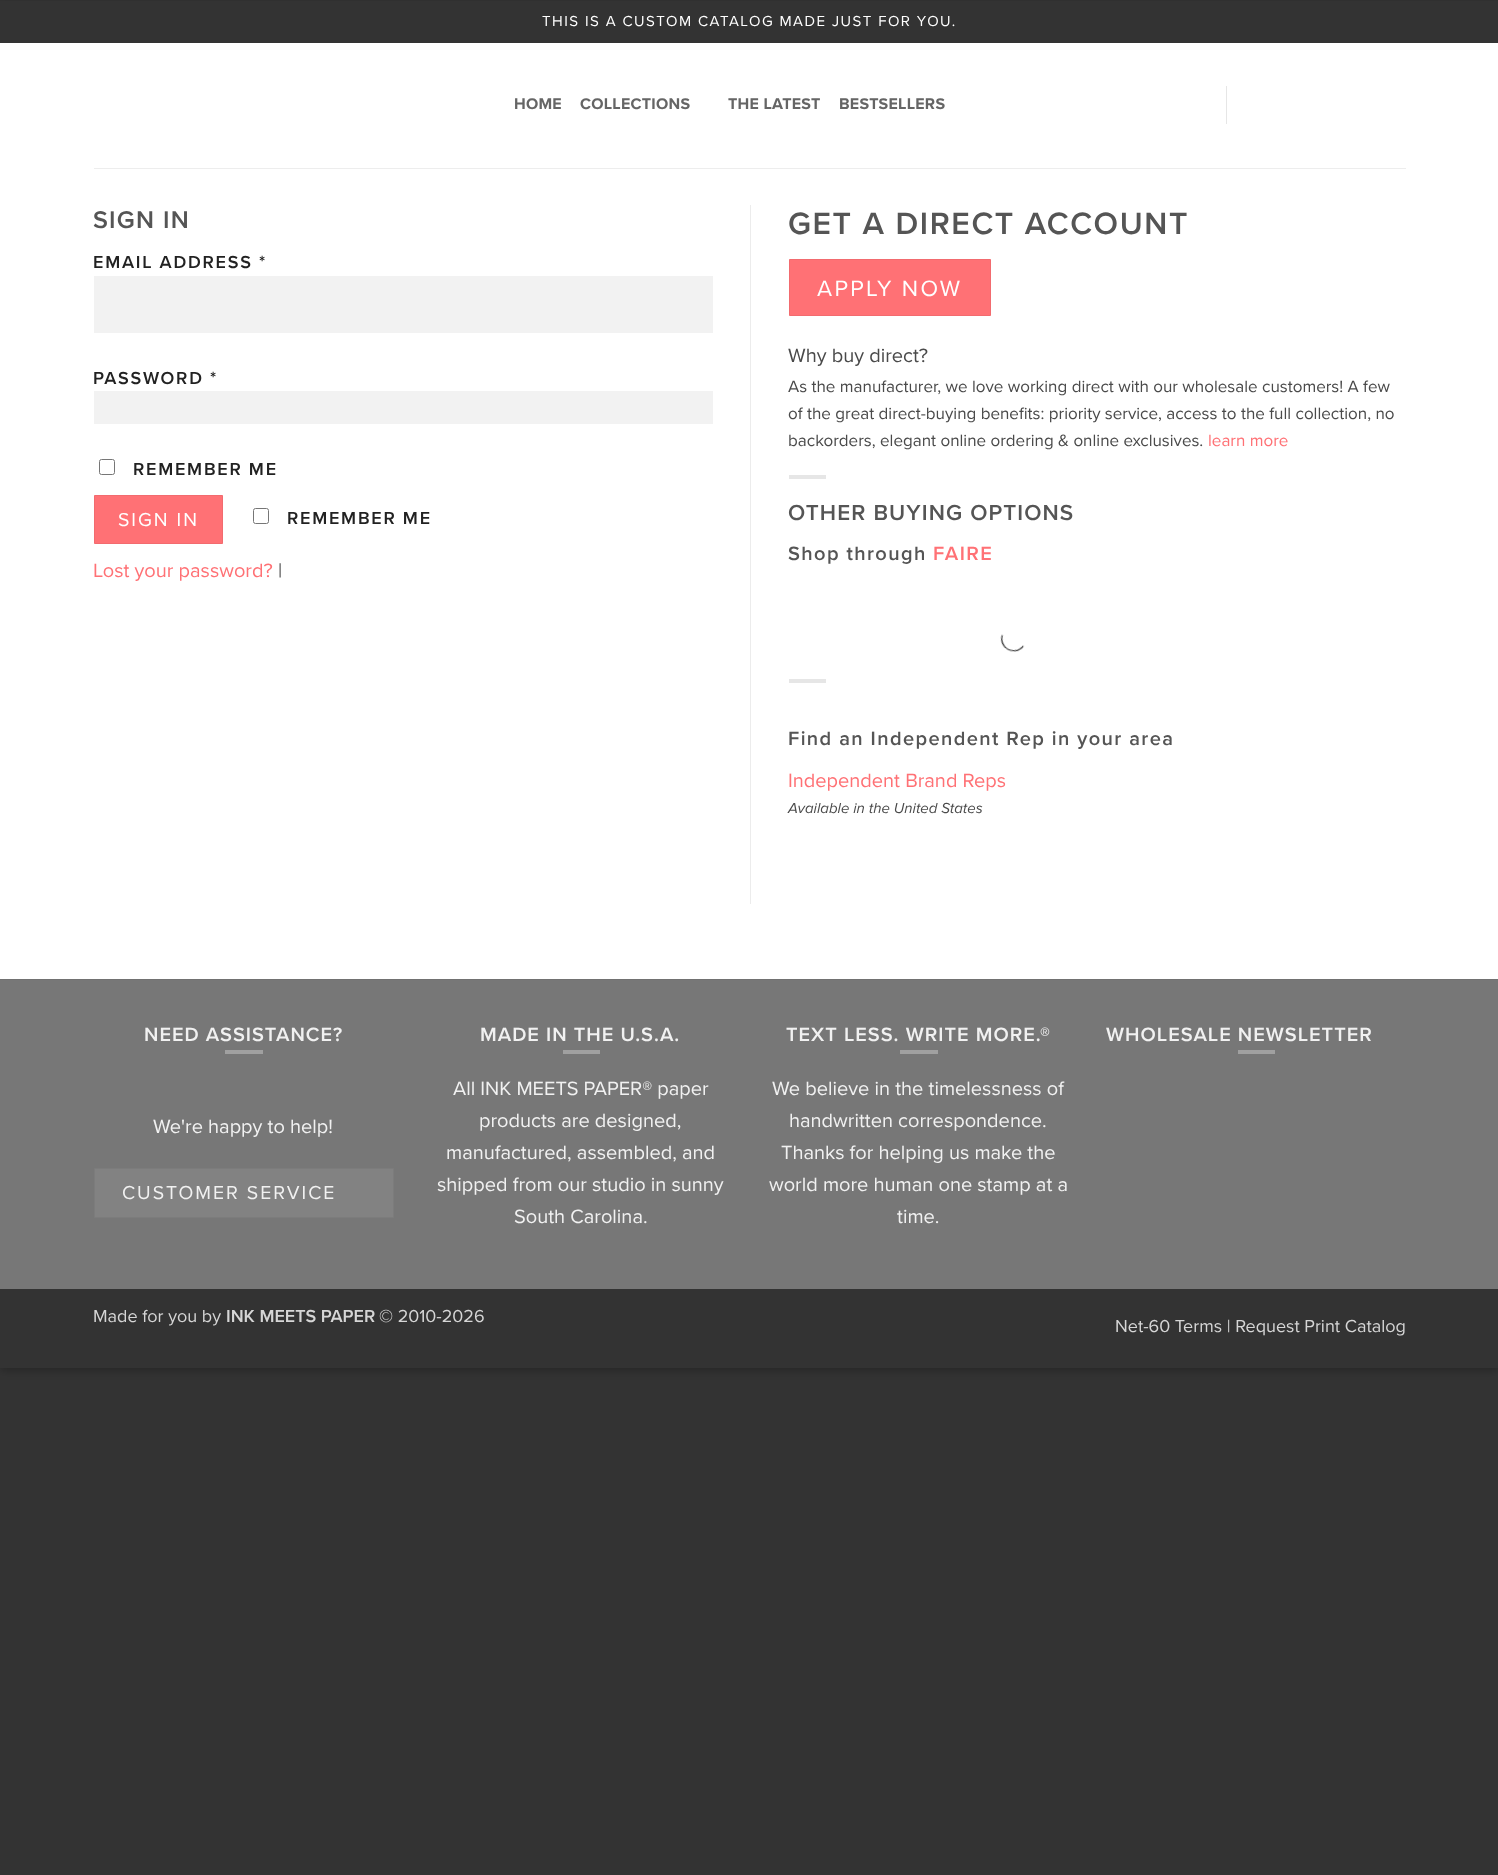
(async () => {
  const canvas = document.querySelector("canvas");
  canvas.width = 1498;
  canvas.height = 1875;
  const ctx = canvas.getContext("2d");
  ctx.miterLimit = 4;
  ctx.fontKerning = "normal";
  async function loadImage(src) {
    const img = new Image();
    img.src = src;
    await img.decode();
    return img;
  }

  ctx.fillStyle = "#333333";
  ctx.fillRect(0, 0, 1498, 1875);
  ctx.fillStyle = "rgba(0, 0, 0, 0.23)";
  ctx.filter = "blur(4px)";
  ctx.beginPath();
  ctx.rect(0, 4, 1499, 1367);
  ctx.fill();
  ctx.filter = "none";
  for (const [x, y, w, h, color] of [
    [0, 43, 1498, 936, "#ffffff"],
    [0, 1, 1498, 42, "#333333"],
    [1226, 86, 1, 38, "#e6e6e6"],
    [94, 168, 1312, 1, "#ededed"],
    [94, 276, 619, 57, "#f2f2f2"],
    [94, 391, 619, 33, "#f2f2f2"],
  ]) {
    ctx.fillStyle = color;
    ctx.fillRect(x, y, w, h);
  }
  ctx.beginPath();
  ctx.roundRect(99.5, 459.5, 15, 15, 2);
  ctx.strokeStyle = "#767676";
  ctx.stroke();
  ctx.fillStyle = "#ff7175";
  ctx.beginPath();
  ctx.rect(94.5, 495.5, 128, 48);
  ctx.fill();
  ctx.strokeStyle = "#f26b6f";
  ctx.stroke();
  ctx.beginPath();
  ctx.roundRect(253.5, 508.5, 15, 15, 2);
  ctx.strokeStyle = "#767676";
  ctx.stroke();
  ctx.fillStyle = "#ececec";
  ctx.fillRect(750, 205, 1, 699);
  ctx.fillStyle = "#ff7175";
  ctx.beginPath();
  ctx.rect(789.5, 259.5, 201, 56);
  ctx.fill();
  ctx.strokeStyle = "#f26b6f";
  ctx.stroke();
  ctx.fillStyle = "#e6e6e6";
  ctx.fillRect(789, 475, 37, 4);
  ctx.drawImage(await loadImage("img/1.png"), 1000, 634, 25, 18);
  for (const [x, y, w, h, color] of [
    [789, 679, 37, 4, "#e6e6e6"],
    [0, 980, 1498, 309, "#777777"],
    [0, 979, 1498, 1, "#717171"],
    [225, 1050, 38, 4, "#a0a0a0"],
  ]) {
    ctx.fillStyle = color;
    ctx.fillRect(x, y, w, h);
  }
  ctx.fillStyle = "#828282";
  ctx.beginPath();
  ctx.rect(94.5, 1168.5, 299, 49);
  ctx.fill();
  ctx.strokeStyle = "#7c7c7c";
  ctx.stroke();
  for (const [x, y, w, h, color] of [
    [563, 1050, 37, 4, "#a0a0a0"],
    [900, 1050, 38, 4, "#a0a0a0"],
    [1238, 1050, 37, 4, "#a0a0a0"],
    [0, 1289, 1498, 79, "#333333"],
  ]) {
    ctx.fillStyle = color;
    ctx.fillRect(x, y, w, h);
  }
  ctx.letterSpacing = "1.5px";
  ctx.font = "15px Proxima Nova";
  ctx.fillStyle = "#ffffff";
  ctx.fillText("THIS IS A CUSTOM CATALOG MADE JUST FOR YOU.", 542, 26);
  ctx.letterSpacing = "0.25px";
  ctx.font = "bold 16px Proxima Nova";
  ctx.fillStyle = "#656565";
  for (const [text, x, y] of [
    ["HOME", 514, 109],
    ["COLLECTIONS", 580, 109],
    ["THE LATEST", 728, 109],
    ["BESTSELLERS", 839, 109],
  ]) {
    ctx.fillText(text, x, y);
  }
  ctx.letterSpacing = "1.25px";
  ctx.font = "600 25px Proxima Nova";
  ctx.fillStyle = "#555555";
  ctx.fillText("SIGN IN", 93, 228);
  ctx.letterSpacing = "1.75px";
  ctx.font = "600 18px Proxima Nova";
  ctx.fillStyle = "#222222";
  for (const [text, x, y] of [
    ["EMAIL ADDRESS *", 93, 268],
    ["PASSWORD *", 93, 384],
    ["REMEMBER ME", 133, 475],
  ]) {
    ctx.fillText(text, x, y);
  }
  ctx.letterSpacing = "2px";
  ctx.font = "19.4px Proxima Nova";
  ctx.fillStyle = "#ffffff";
  ctx.fillText("SIGN IN", 118, 526);
  ctx.letterSpacing = "1.75px";
  ctx.font = "600 18px Proxima Nova";
  ctx.fillStyle = "#222222";
  ctx.fillText("REMEMBER ME", 287, 524);
  ctx.letterSpacing = "0px";
  ctx.font = "20px Proxima Nova";
  ctx.fillStyle = "#ff7175";
  ctx.fillText("Lost your password?", 93, 577);
  ctx.fillStyle = "#4a4a4a";
  ctx.fillText("|", 278, 577);
  ctx.letterSpacing = "1.6px";
  ctx.font = "600 32px Proxima Nova";
  ctx.fillStyle = "#555555";
  ctx.fillText("GET A DIRECT ACCOUNT", 788, 234);
  ctx.letterSpacing = "2.25px";
  ctx.font = "23px Proxima Nova";
  ctx.fillStyle = "#ffffff";
  ctx.fillText("APPLY NOW", 817, 296);
  ctx.letterSpacing = "0px";
  ctx.font = "20px Proxima Nova";
  ctx.fillStyle = "#4a4a4a";
  ctx.fillText("Why buy direct?", 788, 362);
  ctx.font = "17px Proxima Nova";
  for (const [text, x, y] of [
    ["As the manufacturer, we love working direct with our wholesale customers! A few", 788, 392],
    ["of the great direct-buying benefits: priority service, access to the full collection, no", 788, 419],
    ["backorders, elegant online ordering & online exclusives.", 788, 446],
  ]) {
    ctx.fillText(text, x, y);
  }
  ctx.fillStyle = "#ff7175";
  ctx.fillText("learn more", 1208, 446);
  ctx.letterSpacing = "1.1px";
  ctx.font = "600 22.5px Proxima Nova";
  ctx.fillStyle = "#555555";
  ctx.fillText("OTHER BUYING OPTIONS", 788, 520);
  ctx.letterSpacing = "1.4px";
  ctx.font = "600 20px Proxima Nova";
  ctx.fillText("Shop through", 788, 560);
  ctx.fillStyle = "#ff7175";
  ctx.fillText("FAIRE", 933, 560);
  ctx.fillStyle = "#555555";
  ctx.fillText("Find an Independent Rep in your area", 788, 745);
  ctx.letterSpacing = "0px";
  ctx.font = "20px Proxima Nova";
  ctx.fillStyle = "#ff7175";
  ctx.fillText("Independent Brand Reps", 788, 787);
  ctx.font = "italic 15px Proxima Nova";
  ctx.fillStyle = "#4a4a4a";
  ctx.fillText("Available in the United States", 788, 813);
  ctx.letterSpacing = "1px";
  ctx.font = "600 20px Proxima Nova";
  ctx.fillStyle = "#f1f1f1";
  ctx.fillText("NEED ASSISTANCE?", 144, 1041);
  ctx.letterSpacing = "0px";
  ctx.font = "20px Proxima Nova";
  ctx.fillText("We're happy to help!", 153, 1133);
  ctx.letterSpacing = "2px";
  ctx.font = "19.4px Proxima Nova";
  ctx.fillText("CUSTOMER SERVICE", 122, 1199);
  ctx.letterSpacing = "1px";
  ctx.font = "600 20px Proxima Nova";
  ctx.fillText("MADE IN THE U.S.A.", 480, 1041);
  ctx.letterSpacing = "0px";
  ctx.font = "20px Proxima Nova";
  for (const [text, x, y] of [
    ["All INK MEETS PAPER® paper", 453, 1095],
    ["products are designed,", 479, 1127],
    ["manufactured, assembled, and", 446, 1159],
    ["shipped from our studio in sunny", 437, 1191],
    ["South Carolina.", 514, 1223],
  ]) {
    ctx.fillText(text, x, y);
  }
  ctx.letterSpacing = "1px";
  ctx.font = "600 20px Proxima Nova";
  ctx.fillText("TEXT LESS. WRITE MORE.®", 786, 1041);
  ctx.letterSpacing = "0px";
  ctx.font = "20px Proxima Nova";
  for (const [text, x, y] of [
    ["We believe in the timelessness of", 772, 1095],
    ["handwritten correspondence.", 789, 1127],
    ["Thanks for helping us make the", 781, 1159],
    ["world more human one stamp at a", 769, 1191],
    ["time.", 897, 1223],
  ]) {
    ctx.fillText(text, x, y);
  }
  ctx.letterSpacing = "1px";
  ctx.font = "600 20px Proxima Nova";
  ctx.fillText("WHOLESALE NEWSLETTER", 1106, 1041);
  ctx.letterSpacing = "0px";
  ctx.font = "18px Proxima Nova";
  ctx.fillStyle = "#d6d6d6";
  ctx.fillText("Made for you by", 93, 1322);
  ctx.font = "600 18px Proxima Nova";
  ctx.fillText("INK MEETS PAPER", 226, 1322);
  ctx.font = "18px Proxima Nova";
  ctx.fillText("© 2010-2026", 379, 1322);
  ctx.fillText("Net-60 Terms | Request Print Catalog", 1115, 1332);
})();
